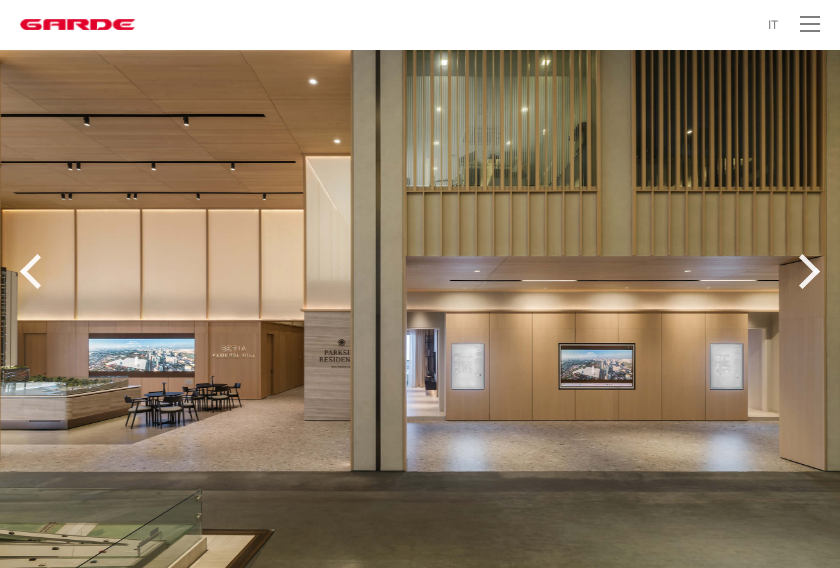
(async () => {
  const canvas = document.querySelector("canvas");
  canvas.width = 840;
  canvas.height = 568;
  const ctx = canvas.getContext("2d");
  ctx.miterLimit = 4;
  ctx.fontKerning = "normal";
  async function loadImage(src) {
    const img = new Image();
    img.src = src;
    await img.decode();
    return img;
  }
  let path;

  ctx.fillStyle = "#ffffff";
  ctx.fillRect(0, 0, 840, 568);
  ctx.drawImage(await loadImage("img/1.png"), 20, 19, 115, 11);
  for (const [x, y, w, h, color] of [
    [800, 16, 20, 2, "#7e7e7e"],
    [800, 23, 20, 2, "#7e7e7e"],
    [800, 30, 20, 2, "#7e7e7e"],
  ]) {
    ctx.fillStyle = color;
    ctx.fillRect(x, y, w, h);
  }
  ctx.drawImage(await loadImage("img/2.png"), 0, 50, 840, 518);
  ctx.fillStyle = "rgba(255, 255, 255, 0.9)";
  path = new Path2D("M20 271.5L37.5 254L41 257.5L23.5 275Z");
  ctx.fill(path);
  path = new Path2D("M20 271.5L23.5 268L41 285.5L37.5 289Z");
  ctx.fill(path);
  path = new Path2D("M802.5 254L820 271.5L816.5 275L799 257.5Z");
  ctx.fill(path);
  path = new Path2D("M816.5 268L820 271.5L802.5 289L799 285.5Z");
  ctx.fill(path);
  ctx.font = "12px Roboto";
  ctx.fillStyle = "#7e7e7e";
  ctx.fillText("IT", 768, 29);
})();
